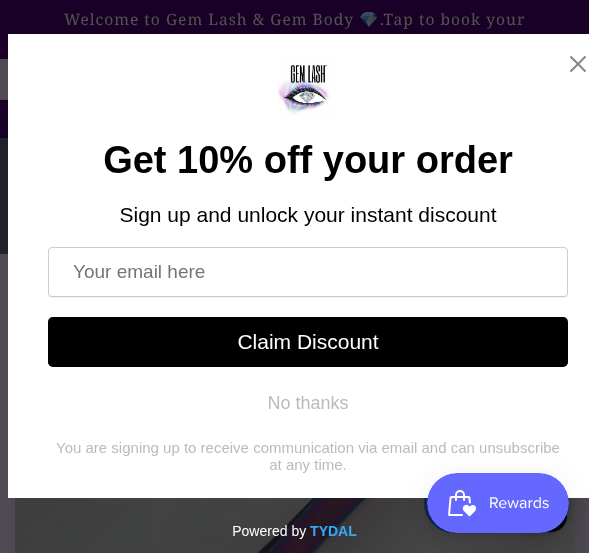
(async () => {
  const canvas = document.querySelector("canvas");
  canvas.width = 589;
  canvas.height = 553;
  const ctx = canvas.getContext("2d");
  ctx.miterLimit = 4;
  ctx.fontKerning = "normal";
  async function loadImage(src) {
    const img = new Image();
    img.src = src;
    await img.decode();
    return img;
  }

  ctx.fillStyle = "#f2e0fd";
  ctx.fillRect(0, 0, 589, 553);
  for (const [x, y, w, h, color] of [
    [0, 0, 589, 58, "#4b0076"],
    [0, 58, 8, 1, "#591480"],
    [0, 99, 8, 1, "#dfcee9"],
    [0, 100, 8, 38, "#4b0076"],
  ]) {
    ctx.fillStyle = color;
    ctx.fillRect(x, y, w, h);
  }
  ctx.fillStyle = "rgba(0, 0, 0, 0.1)";
  ctx.filter = "blur(10px)";
  ctx.beginPath();
  ctx.roundRect(25, 244, 559, 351, 12);
  ctx.fill();
  ctx.filter = "none";
  ctx.fillStyle = "#676986";
  ctx.fillRect(0, 138, 8, 116);
  ctx.drawImage(await loadImage("img/2.png"), 15, 498, 559, 55);
  ctx.fillStyle = "rgba(0, 0, 0, 0.15)";
  ctx.filter = "blur(2.5px)";
  ctx.beginPath();
  ctx.roundRect(454, 472, 113, 60, 16);
  ctx.fill();
  ctx.filter = "none";
  ctx.fillStyle = "#000000";
  ctx.beginPath();
  ctx.roundRect(454, 472, 113, 60, 16);
  ctx.fill();
  ctx.fillStyle = "rgba(0, 0, 0, 0.15)";
  ctx.filter = "blur(15px)";
  ctx.beginPath();
  ctx.roundRect(424, 475, 145, 60, 30);
  ctx.fill();
  ctx.filter = "none";
  ctx.fillStyle = "rgba(0, 0, 0, 0.05)";
  ctx.filter = "blur(3px)";
  ctx.beginPath();
  ctx.roundRect(424, 474, 145, 60, 30);
  ctx.fill();
  ctx.filter = "none";
  ctx.fillStyle = "rgba(0, 0, 0, 0.15)";
  ctx.filter = "blur(6px)";
  ctx.beginPath();
  ctx.roundRect(509, 477, 60, 60, 30);
  ctx.fill();
  ctx.filter = "none";
  ctx.fillStyle = "#286ef8";
  ctx.beginPath();
  ctx.roundRect(424, 473, 145, 60, 30);
  ctx.fill();
  ctx.letterSpacing = "1px";
  ctx.font = "15.6px Noto Serif";
  ctx.fillStyle = "#faf7f2";
  ctx.fillText("Welcome to Gem Lash & Gem Body", 64, 25);
  ctx.font = "15.6px Noto Color Emoji";
  ctx.fillText("💎", 359, 25);
  ctx.font = "15.6px Noto Serif";
  ctx.fillText(".Tap to book your", 380, 25);
  ctx.drawImage(await loadImage("img/1.png"), 0, 0, 589, 553);
  ctx.fillStyle = "rgba(0, 0, 0, 0.05)";
  ctx.filter = "blur(12.5px)";
  ctx.beginPath();
  ctx.roundRect(427, 473, 142, 60, 30);
  ctx.fill();
  ctx.filter = "none";
  ctx.drawImage(await loadImage("img/3.png"), 427, 473, 142, 60);
})();
